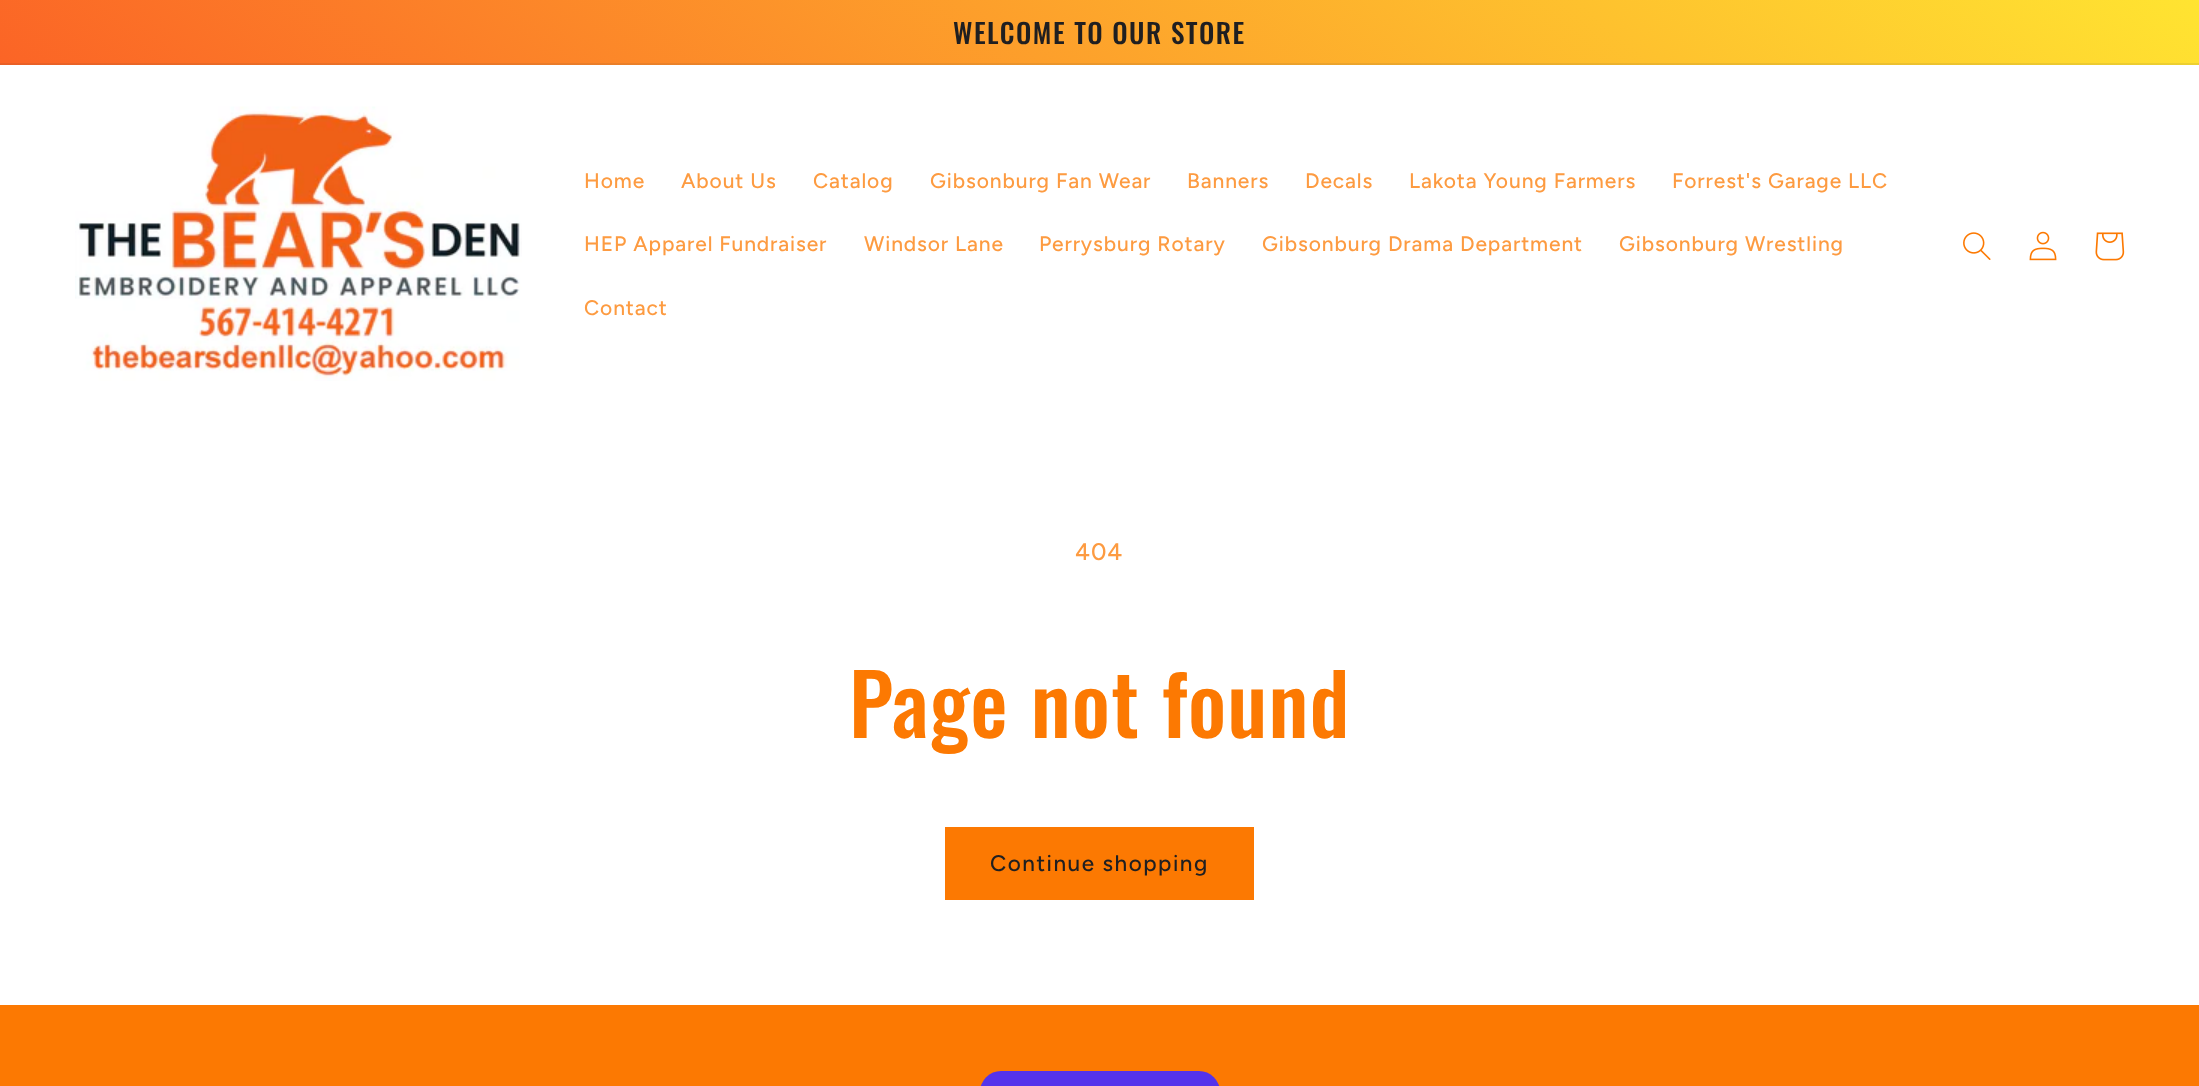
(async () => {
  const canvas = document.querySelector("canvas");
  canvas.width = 2199;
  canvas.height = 1086;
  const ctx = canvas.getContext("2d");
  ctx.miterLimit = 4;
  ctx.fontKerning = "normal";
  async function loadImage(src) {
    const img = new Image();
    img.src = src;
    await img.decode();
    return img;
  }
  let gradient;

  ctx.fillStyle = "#ffffff";
  ctx.fillRect(0, 0, 2199, 1086);
  gradient = ctx.createLinearGradient(1821, -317, 378, 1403);
  gradient.addColorStop(0, "#ffe431");
  gradient.addColorStop(1, "#f92020");
  ctx.fillStyle = gradient;
  ctx.fillRect(0, 0, 2199, 63);
  gradient = ctx.createLinearGradient(1821, -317, 378, 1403);
  gradient.addColorStop(0, "#edd430");
  gradient.addColorStop(1, "#e82020");
  ctx.fillStyle = gradient;
  ctx.fillRect(0, 63, 2199, 2);
  ctx.drawImage(await loadImage("img/1.png"), 75, 106, 447, 275);
  ctx.drawImage(await loadImage("img/2.png"), 1963, 232, 28, 28);
  ctx.drawImage(await loadImage("img/3.png"), 2029, 231, 28, 30);
  ctx.drawImage(await loadImage("img/4.png"), 2095, 232, 30, 29);
  ctx.fillStyle = "#fc7902";
  ctx.fillRect(945, 827, 309, 73);
  ctx.fillRect(0, 1005, 2199, 81);
  ctx.fillStyle = "#5433eb";
  ctx.beginPath();
  ctx.roundRect(980, 1071, 240, 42, 27);
  ctx.fill();
  ctx.letterSpacing = "1.5px";
  ctx.font = "500 27.25px Oswald";
  ctx.fillStyle = "#1f1f21";
  ctx.fillText("WELCOME TO OUR STORE", 953, 44);
  ctx.letterSpacing = "0.9px";
  ctx.font = "500 21px Figtree";
  ctx.fillStyle = "#fd9b41";
  for (const [text, x, y] of [
    ["Home", 584, 188],
    ["About Us", 681, 188],
    ["Catalog", 813, 188],
    ["Gibsonburg Fan Wear", 930, 188],
    ["Banners", 1187, 188],
    ["Decals", 1305, 188],
    ["Lakota Young Farmers", 1409, 188],
    ["Forrest's Garage LLC", 1672, 188],
    ["HEP Apparel Fundraiser", 584, 251],
    ["Windsor Lane", 864, 251],
    ["Perrysburg Rotary", 1039, 251],
    ["Gibsonburg Drama Department", 1262, 251],
    ["Gibsonburg Wrestling", 1619, 251],
    ["Contact", 584, 315],
  ]) {
    ctx.fillText(text, x, y);
  }
  ctx.font = "500 24px Figtree";
  ctx.fillText("404", 1075, 560);
  ctx.letterSpacing = "1.25px";
  ctx.font = "500 84px Oswald";
  ctx.fillStyle = "#fc7902";
  ctx.fillText("Page not found", 849, 738);
  ctx.letterSpacing = "1.5px";
  ctx.font = "500 22.5px Figtree";
  ctx.fillStyle = "#1f1f21";
  ctx.fillText("Continue shopping", 990, 871);
})();
